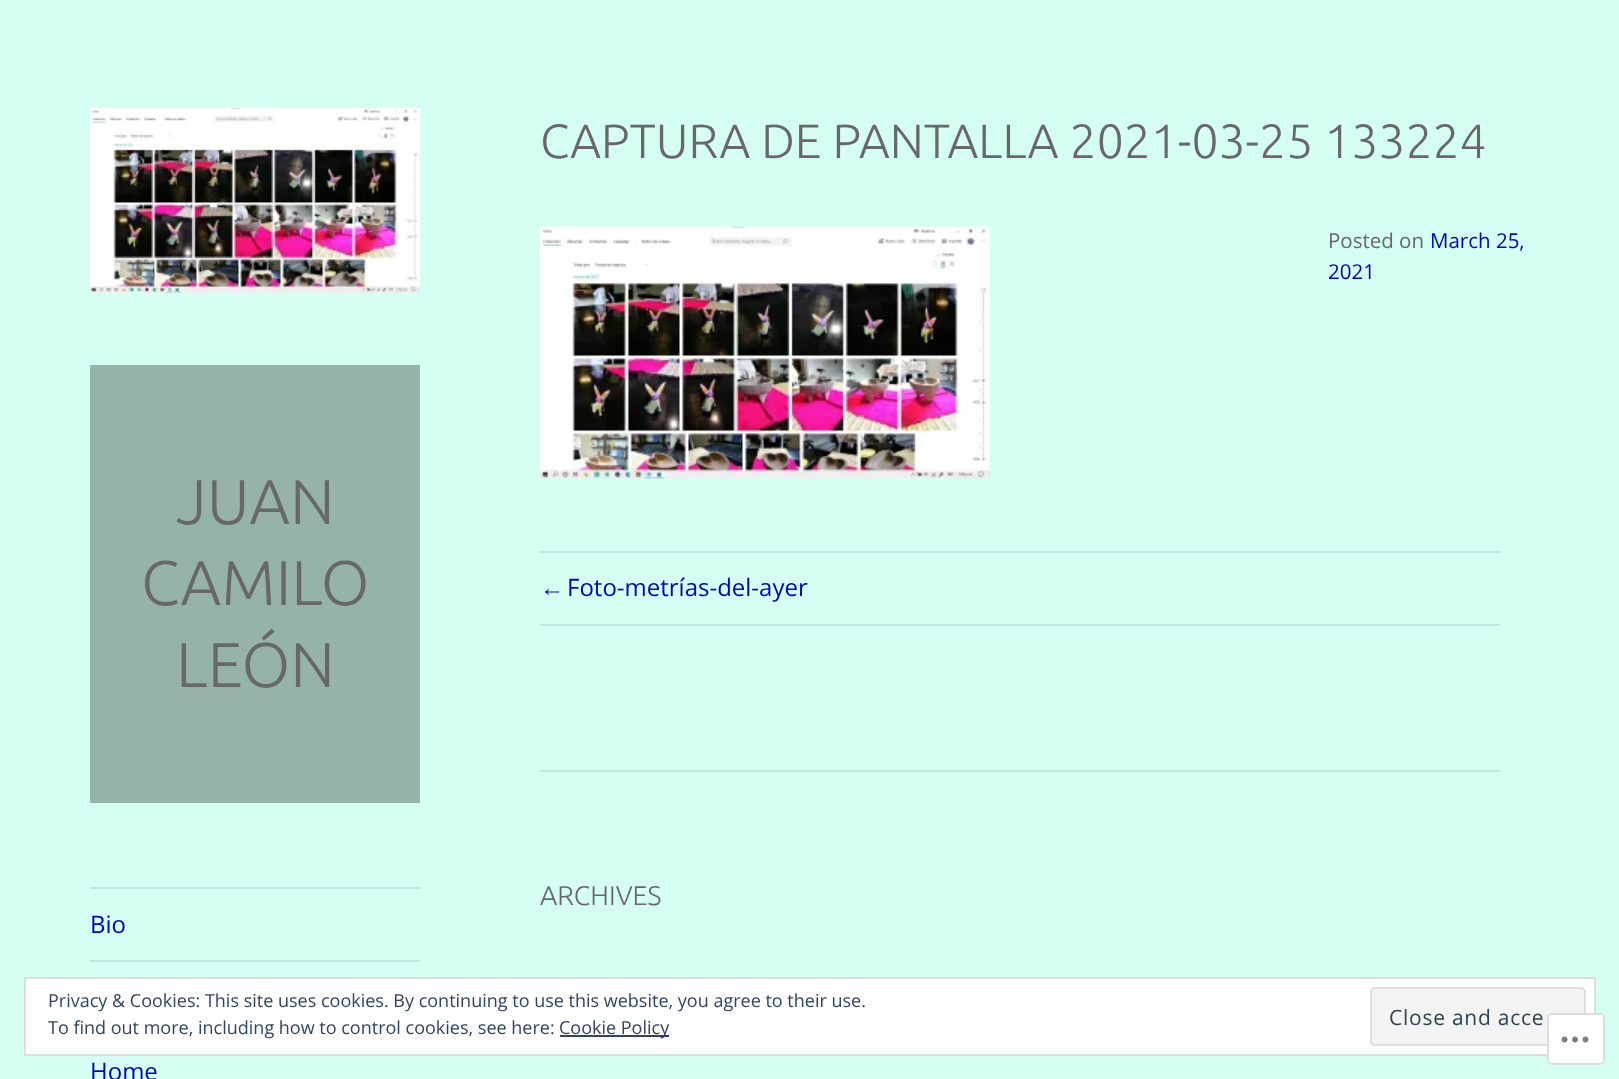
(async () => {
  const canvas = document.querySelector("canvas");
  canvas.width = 1619;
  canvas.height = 1079;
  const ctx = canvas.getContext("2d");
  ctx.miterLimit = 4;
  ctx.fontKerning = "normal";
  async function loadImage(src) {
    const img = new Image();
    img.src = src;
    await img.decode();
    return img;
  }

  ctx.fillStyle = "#d5fff3";
  ctx.fillRect(0, 0, 1619, 1079);
  ctx.drawImage(await loadImage("img/1.png"), 90, 108, 330, 185);
  for (const [x, y, w, h, color] of [
    [90, 365, 330, 438, "#95b3aa"],
    [90, 887, 330, 2, "#c0e6db"],
    [90, 960, 330, 2, "#c0e6db"],
  ]) {
    ctx.fillStyle = color;
    ctx.fillRect(x, y, w, h);
  }
  ctx.drawImage(await loadImage("img/2.png"), 540, 226, 450, 253);
  for (const [x, y, w, h, color] of [
    [540, 551, 960, 2, "#c0e6db"],
    [540, 624, 960, 2, "#c0e6db"],
    [540, 770, 960, 2, "#c0e6db"],
  ]) {
    ctx.fillStyle = color;
    ctx.fillRect(x, y, w, h);
  }
  ctx.fillStyle = "#ffffff";
  ctx.beginPath();
  ctx.rect(25, 978, 1570, 77);
  ctx.fill();
  ctx.strokeStyle = "#dedede";
  ctx.lineWidth = 2;
  ctx.stroke();
  ctx.fillStyle = "#f3f3f3";
  ctx.beginPath();
  ctx.roundRect(1371, 988, 214, 57, 4);
  ctx.fill();
  ctx.stroke();
  ctx.fillStyle = "#2e4467";
  ctx.fillRect(560, 1035, 109, 2);
  ctx.fillStyle = "rgba(255, 255, 255, 0.98)";
  ctx.beginPath();
  ctx.roundRect(1547, 1013, 58, 52, 5);
  ctx.fill();
  ctx.beginPath();
  ctx.roundRect(1548, 1014, 56, 50, 4);
  ctx.strokeStyle = "rgba(220, 220, 222, 0.98)";
  ctx.stroke();
  ctx.drawImage(await loadImage("img/3.png"), 1561, 1036, 28, 7);
  ctx.font = "300 63px Ubuntu";
  ctx.fillStyle = "#686868";
  for (const [text, x, y] of [
    ["JUAN", 176, 524],
    ["CAMILO", 141, 605],
    ["LEÓN", 176, 687],
  ]) {
    ctx.fillText(text, x, y);
  }
  ctx.font = "24px Open Sans";
  ctx.fillStyle = "#0004c5";
  ctx.fillText("Bio", 90, 933);
  ctx.fillText("Home", 90, 1080);
  ctx.font = "300 48px Ubuntu";
  ctx.fillStyle = "#686868";
  ctx.fillText("CAPTURA DE PANTALLA 2021-03-25 133224", 540, 158);
  ctx.font = "20.5px Open Sans";
  ctx.fillText("Posted on", 1328, 248);
  ctx.fillStyle = "#0004c5";
  ctx.fillText("March 25,", 1430, 248);
  ctx.fillText("2021", 1328, 279);
  ctx.font = "24px Liberation Sans";
  ctx.fillText("←", 540, 596);
  ctx.font = "24px Open Sans";
  ctx.fillText("Foto-metrías-del-ayer", 567, 596);
  ctx.font = "300 27px Ubuntu";
  ctx.fillStyle = "#686868";
  ctx.fillText("ARCHIVES", 540, 905);
  ctx.font = "18px Open Sans";
  ctx.fillStyle = "#2e4467";
  ctx.fillText("Privacy & Cookies: This site uses cookies. By continuing to use this website, you agree to their use.", 48, 1007);
  ctx.letterSpacing = "0.75px";
  ctx.font = "21px Open Sans";
  ctx.fillStyle = "#2e4453";
  ctx.fillText("Close and acce", 1389, 1025);
  ctx.letterSpacing = "0px";
  ctx.font = "18px Open Sans";
  ctx.fillStyle = "#2e4467";
  ctx.fillText("To find out more, including how to control cookies, see here:", 48, 1034);
  ctx.fillText("Cookie Policy", 559, 1034);
})();
